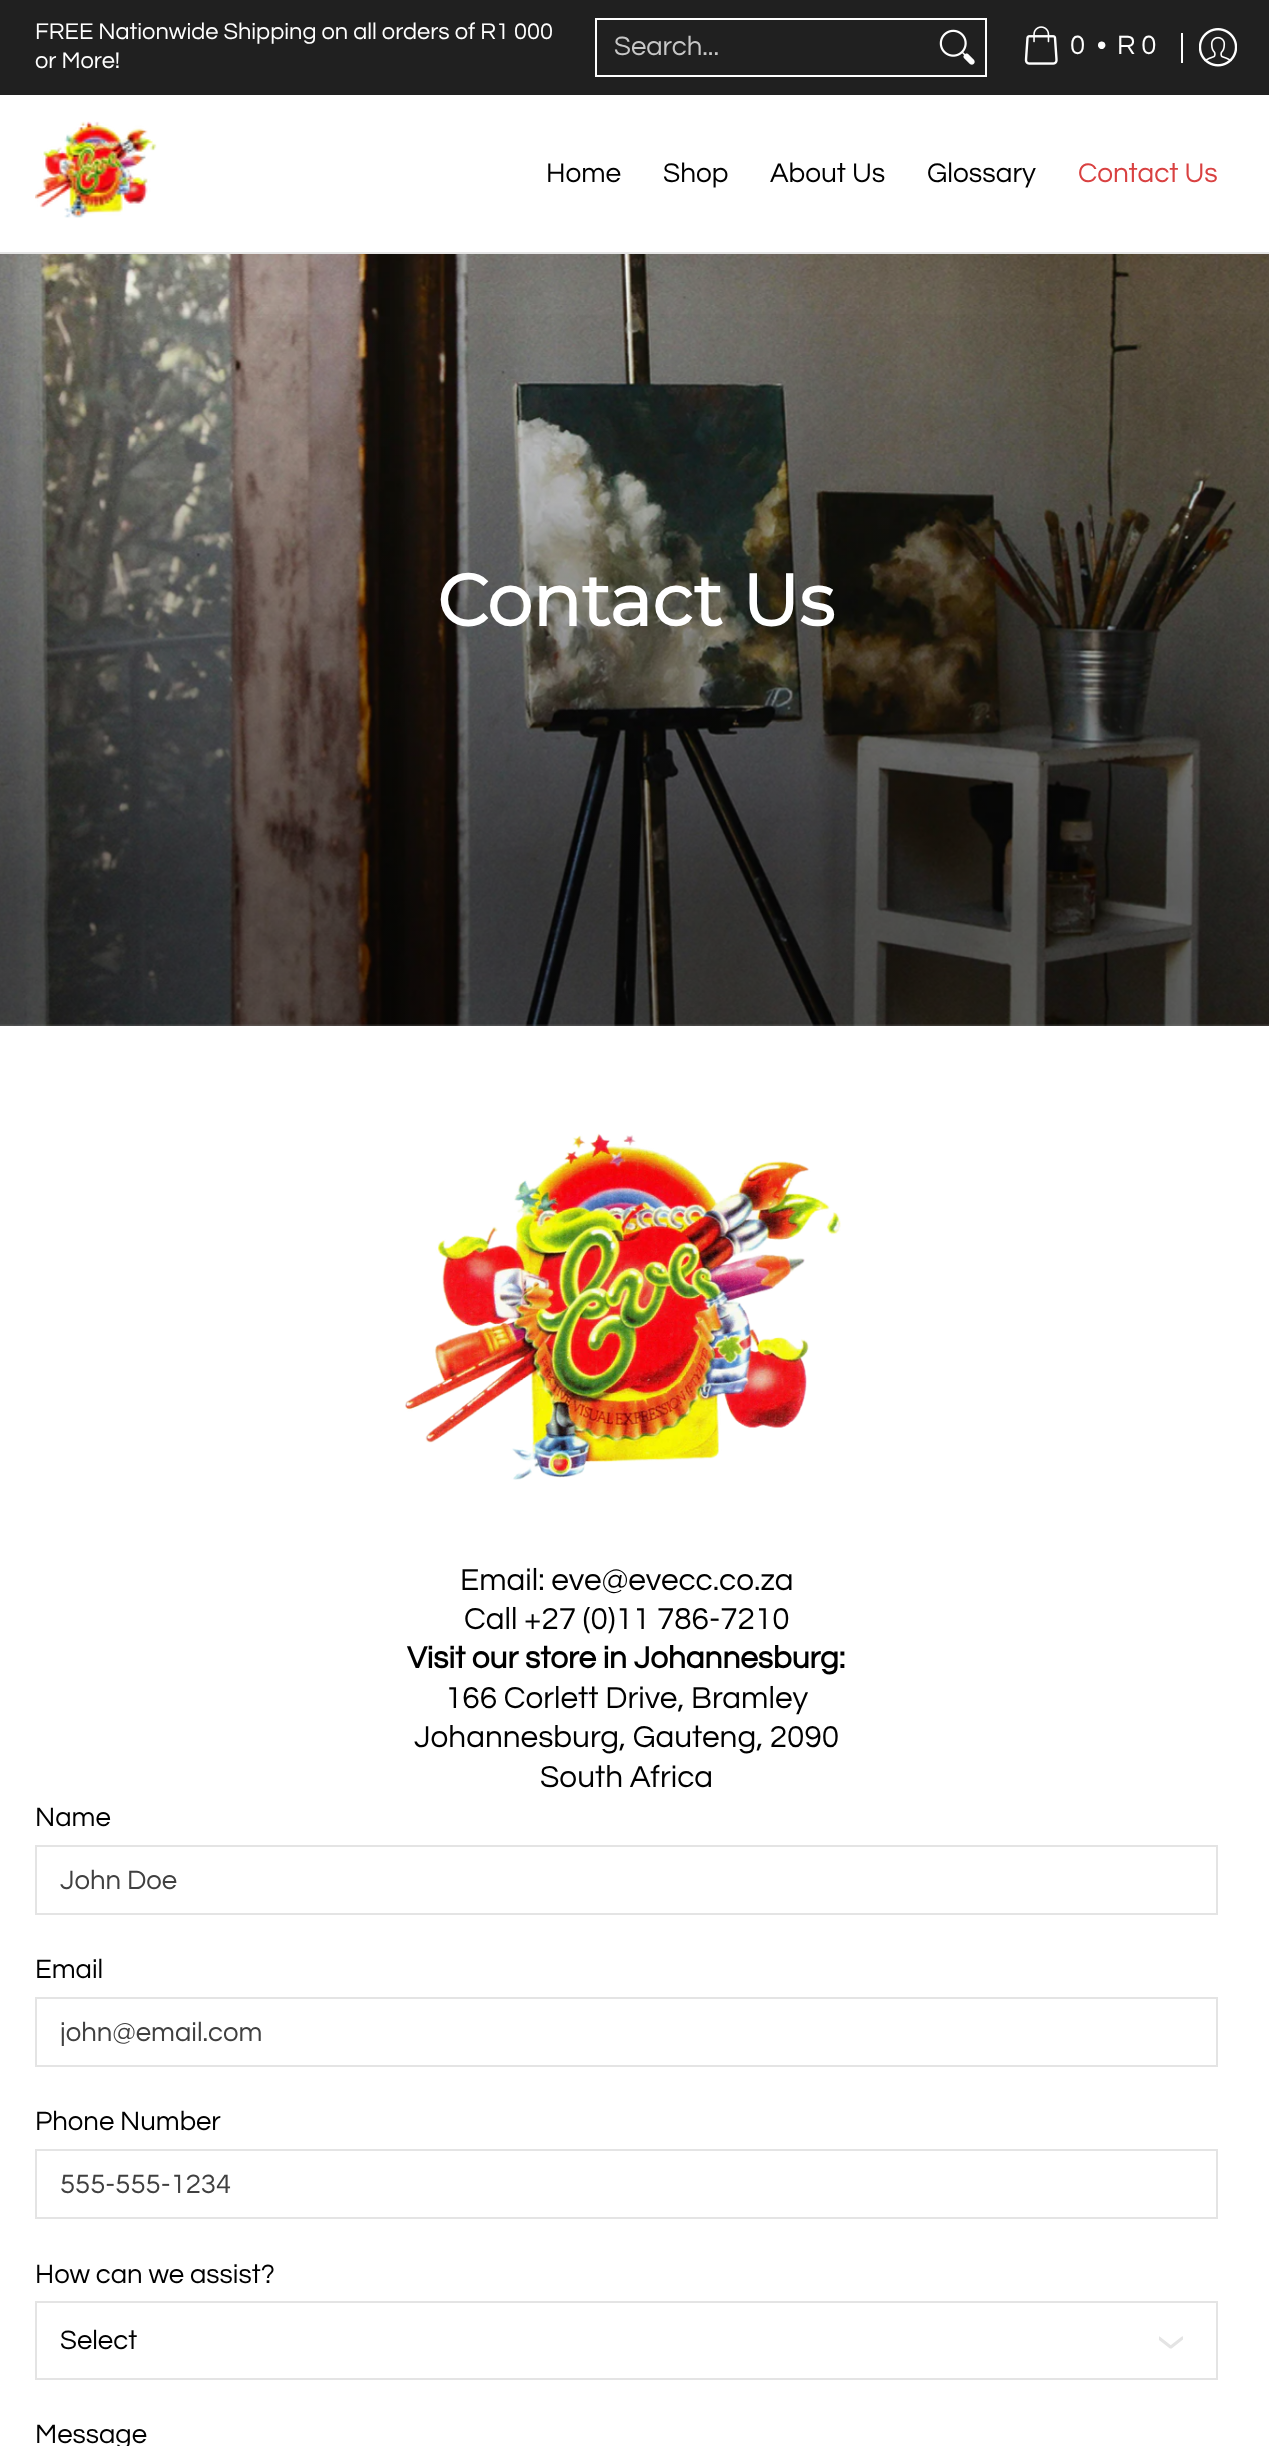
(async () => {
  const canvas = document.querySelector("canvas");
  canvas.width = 1269;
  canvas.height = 2446;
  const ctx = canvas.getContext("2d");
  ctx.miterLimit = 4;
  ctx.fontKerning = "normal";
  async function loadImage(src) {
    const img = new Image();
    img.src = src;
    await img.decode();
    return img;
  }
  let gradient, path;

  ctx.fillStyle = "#ffffff";
  ctx.fillRect(0, 0, 1269, 2446);
  ctx.fillStyle = "#202020";
  ctx.fillRect(0, 0, 1269, 95);
  ctx.strokeStyle = "#ffffff";
  ctx.lineWidth = 2;
  ctx.strokeRect(596, 19, 390, 57);
  ctx.drawImage(await loadImage("img/1.png"), 939, 29, 36, 36);
  ctx.drawImage(await loadImage("img/2.png"), 1024, 26, 34, 39);
  ctx.fillStyle = "#ffffff";
  ctx.fillRect(1181, 33, 2, 30);
  ctx.drawImage(await loadImage("img/3.png"), 1199, 28, 38, 39);
  ctx.fillStyle = "#e4e4e4";
  ctx.fillRect(0, 252, 1269, 2);
  ctx.drawImage(await loadImage("img/4.png"), 35, 121, 122, 97);
  ctx.drawImage(await loadImage("img/5.png"), 0, 254, 1269, 772);
  gradient = ctx.createLinearGradient(635, 168, 635, 1026);
  gradient.addColorStop(0.14, "rgba(0, 0, 0, 0)");
  gradient.addColorStop(0.85, "rgba(0, 0, 0, 0.5)");
  ctx.fillStyle = gradient;
  ctx.fillRect(0, 314, 1269, 712);
  ctx.drawImage(await loadImage("img/6.png"), 405, 1133, 436, 347);
  ctx.strokeStyle = "#e4e4e4";
  ctx.strokeRect(36, 1846, 1181, 68);
  ctx.strokeRect(36, 1998, 1181, 68);
  ctx.strokeRect(36, 2150, 1181, 68);
  ctx.strokeRect(36, 2302, 1181, 77);
  ctx.save();
  ctx.beginPath();
  ctx.rect(1159, 2329, 24, 25);
  ctx.clip();
  path = new Path2D("M1159 2338L1170.5 2347C1170.5 2347 1171 2347 1171 2347L1182.5 2338");
  ctx.lineWidth = 3.1;
  ctx.lineCap = "round";
  ctx.lineJoin = "round";
  ctx.stroke(path);
  ctx.restore();
  ctx.font = "23.6px Questrial";
  ctx.fillStyle = "#ffffff";
  ctx.fillText("FREE Nationwide Shipping on all orders of R1 000", 35, 39);
  ctx.fillText("or More!", 35, 68);
  ctx.font = "27.5px Questrial";
  ctx.fillStyle = "#c7c7c7";
  ctx.fillText("Search...", 614, 55);
  ctx.fillStyle = "#ffffff";
  for (const [text, x, y] of [
    ["0", 1070, 54],
    ["•", 1097, 54],
    ["R 0", 1117, 54],
  ]) {
    ctx.fillText(text, x, y);
  }
  ctx.font = "28px Questrial";
  ctx.fillStyle = "#000000";
  for (const [text, x, y] of [
    ["Home", 546, 182],
    ["Shop", 663, 182],
    ["About Us", 770, 182],
    ["Glossary", 927, 182],
  ]) {
    ctx.fillText(text, x, y);
  }
  ctx.fillStyle = "#d94141";
  ctx.fillText("Contact Us", 1078, 182);
  ctx.font = "bold 72.5px Montserrat";
  ctx.fillStyle = "#ffffff";
  ctx.fillText("Contact Us", 437, 626);
  ctx.font = "31.5px Questrial";
  ctx.fillStyle = "#000000";
  ctx.fillText("Email: eve@evecc.co.za", 460, 1590);
  ctx.fillText("Call +27 (0)11 786-7210", 464, 1629);
  ctx.font = "bold 31.5px Questrial";
  ctx.fillText("Visit our store in Johannesburg:", 407, 1668);
  ctx.font = "31.5px Questrial";
  for (const [text, x, y] of [
    ["166 Corlett Drive, Bramley", 445, 1708],
    ["Johannesburg, Gauteng, 2090", 414, 1747],
    ["South Africa", 540, 1787],
  ]) {
    ctx.fillText(text, x, y);
  }
  ctx.font = "27.5px Questrial";
  ctx.fillText("Name", 35, 1826);
  ctx.fillStyle = "#404040";
  ctx.fillText("John Doe", 60, 1889);
  ctx.fillStyle = "#000000";
  ctx.fillText("Email", 35, 1978);
  ctx.save();
  ctx.beginPath();
  ctx.rect(61, 2018, 1133, 28);
  ctx.clip();
  ctx.fillStyle = "#404040";
  ctx.fillText("john@email.com", 60, 2041);
  ctx.restore();
  ctx.fillText("Phone Number", 35, 2130);
  ctx.fillStyle = "#404040";
  ctx.fillText("555-555-1234", 60, 2193);
  ctx.fillStyle = "#000000";
  for (const [text, x, y] of [
    ["How can we assist?", 35, 2283],
    ["Select", 60, 2349],
    ["Message", 35, 2443],
  ]) {
    ctx.fillText(text, x, y);
  }
})();
